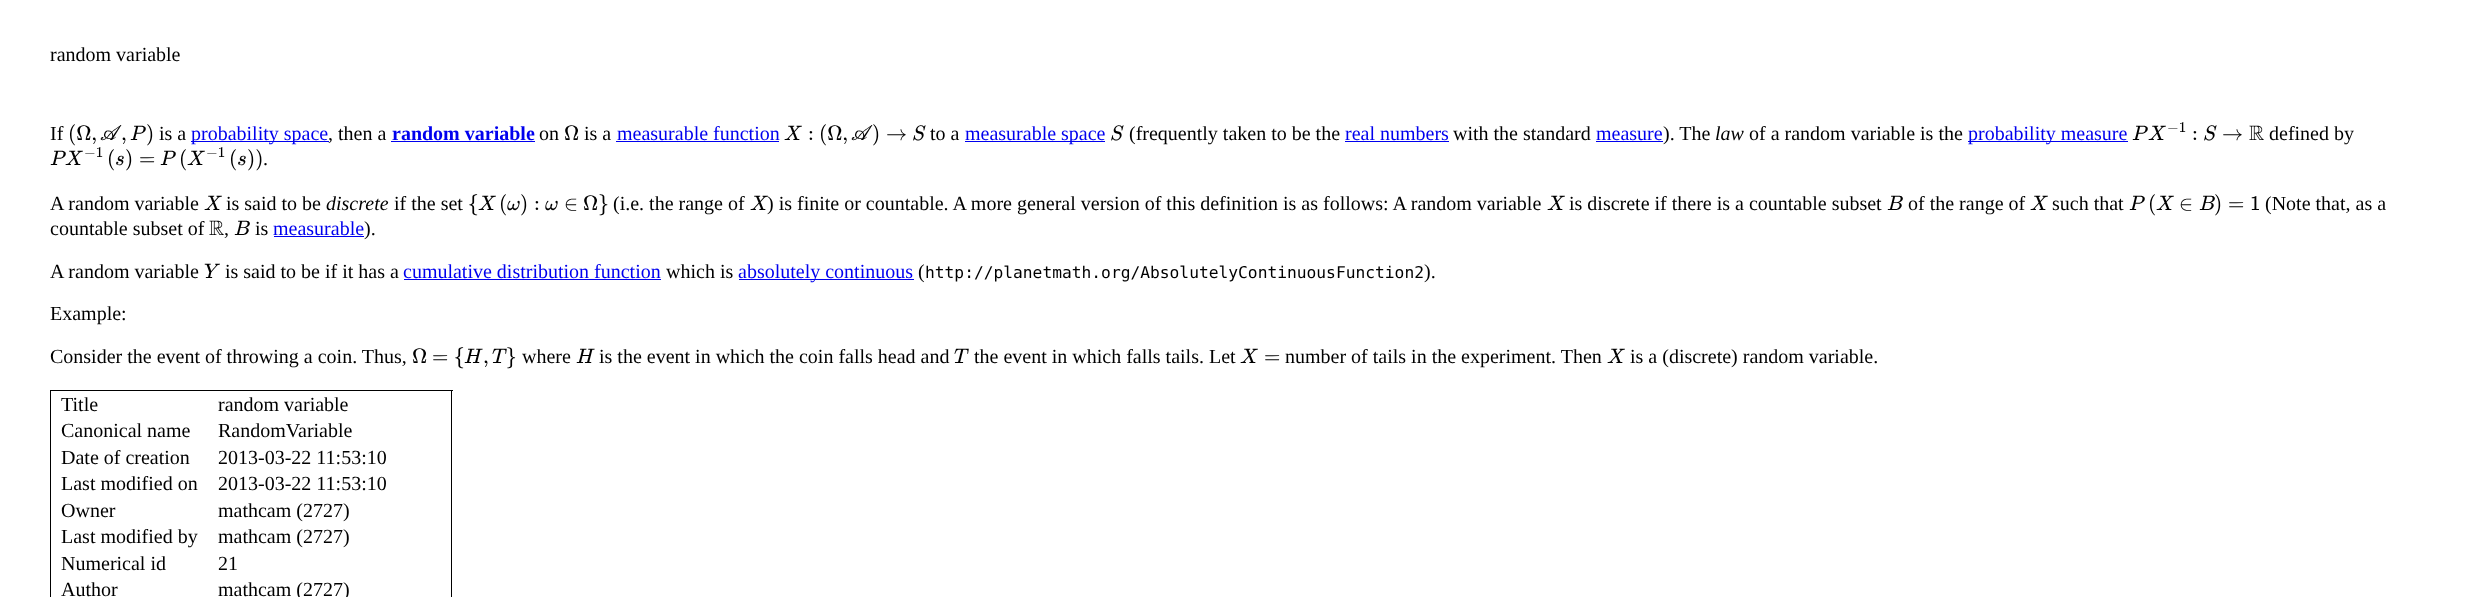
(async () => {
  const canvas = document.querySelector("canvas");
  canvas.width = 2490;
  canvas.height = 597;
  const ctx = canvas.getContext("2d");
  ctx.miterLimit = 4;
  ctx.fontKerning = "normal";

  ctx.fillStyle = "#ffffff";
  ctx.fillRect(0, 0, 2490, 597);
  for (const [x, y, w, h, color] of [
    [191, 141, 138, 1, "#0000ee"],
    [391, 141, 144, 1, "#0000ee"],
    [616, 141, 163, 1, "#0000ee"],
    [965, 141, 140, 1, "#0000ee"],
    [1345, 141, 104, 1, "#0000ee"],
    [1596, 141, 67, 1, "#0000ee"],
    [1968, 141, 160, 1, "#0000ee"],
    [274, 236, 90, 1, "#0000ee"],
    [404, 279, 257, 1, "#0000ee"],
    [739, 279, 175, 1, "#0000ee"],
    [50, 390, 403, 1, "#000000"],
    [50, 418, 1, 179, "#000000"],
    [50, 390, 1, 29, "#000000"],
    [451, 418, 1, 179, "#000000"],
    [451, 390, 1, 29, "#000000"],
  ]) {
    ctx.fillStyle = color;
    ctx.fillRect(x, y, w, h);
  }
  ctx.font = "20px Liberation Serif";
  ctx.fillText("random variable", 50, 61);
  ctx.fillText("If", 50, 140);
  ctx.font = "21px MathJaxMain";
  ctx.fillText("(Ω,", 68, 140);
  ctx.font = "21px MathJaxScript";
  ctx.fillText("A", 100, 140);
  ctx.font = "21px MathJaxMain";
  ctx.fillText(",", 121, 140);
  ctx.font = "italic 21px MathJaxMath";
  ctx.fillText("P", 130, 140);
  ctx.font = "21px MathJaxMain";
  ctx.fillText(")", 146, 140);
  ctx.font = "20px Liberation Serif";
  ctx.fillText("is a", 159, 140);
  ctx.fillStyle = "#0000ee";
  ctx.fillText("probability space", 191, 140);
  ctx.fillStyle = "#000000";
  ctx.fillText(", then a", 328, 140);
  ctx.font = "bold 20px Liberation Serif";
  ctx.fillStyle = "#0000ee";
  ctx.fillText("random variable", 392, 140);
  ctx.font = "20px Liberation Serif";
  ctx.fillStyle = "#000000";
  ctx.fillText("on", 539, 140);
  ctx.font = "21px MathJaxMain";
  ctx.fillText("Ω", 564, 140);
  ctx.font = "20px Liberation Serif";
  ctx.fillText("is a", 584, 140);
  ctx.fillStyle = "#0000ee";
  ctx.fillText("measurable function", 617, 140);
  ctx.font = "italic 21px MathJaxMath";
  ctx.fillStyle = "#000000";
  ctx.fillText("X", 784, 140);
  ctx.font = "21px MathJaxMain";
  ctx.fillText(":", 808, 140);
  ctx.fillText("(Ω,", 819, 140);
  ctx.font = "21px MathJaxScript";
  ctx.fillText("A", 851, 140);
  ctx.font = "21px MathJaxMain";
  ctx.fillText(")", 872, 140);
  ctx.fillText("→", 886, 140);
  ctx.font = "italic 21px MathJaxMath";
  ctx.fillText("S", 912, 140);
  ctx.font = "20px Liberation Serif";
  ctx.fillText("to a", 930, 140);
  ctx.fillStyle = "#0000ee";
  ctx.fillText("measurable space", 965, 140);
  ctx.font = "italic 21px MathJaxMath";
  ctx.fillStyle = "#000000";
  ctx.fillText("S", 1110, 140);
  ctx.font = "20px Liberation Serif";
  ctx.fillText("(frequently taken to be the", 1129, 140);
  ctx.fillStyle = "#0000ee";
  ctx.fillText("real numbers", 1345, 140);
  ctx.fillStyle = "#000000";
  ctx.fillText("with the standard", 1453, 140);
  ctx.fillStyle = "#0000ee";
  ctx.fillText("measure", 1596, 140);
  ctx.fillStyle = "#000000";
  ctx.fillText("). The", 1663, 140);
  ctx.font = "italic 20px Liberation Serif";
  ctx.fillText("law", 1715, 140);
  ctx.font = "20px Liberation Serif";
  ctx.fillText("of a random variable is the", 1749, 140);
  ctx.fillStyle = "#0000ee";
  ctx.fillText("probability measure", 1968, 140);
  ctx.font = "italic 21px MathJaxMath";
  ctx.fillStyle = "#000000";
  ctx.fillText("P", 2132, 140);
  ctx.fillText("X", 2148, 140);
  ctx.font = "15px MathJaxMain";
  ctx.fillText("−1", 2167, 132);
  ctx.font = "21px MathJaxMain";
  ctx.fillText(":", 2192, 140);
  ctx.font = "italic 21px MathJaxMath";
  ctx.fillText("S", 2203, 140);
  ctx.font = "21px MathJaxMain";
  ctx.fillText("→", 2222, 140);
  ctx.font = "21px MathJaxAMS";
  ctx.fillText("R", 2249, 140);
  ctx.font = "20px Liberation Serif";
  ctx.fillText("defined by", 2269, 140);
  ctx.font = "italic 21px MathJaxMath";
  ctx.fillText("P", 50, 165);
  ctx.fillText("X", 65, 165);
  ctx.font = "15px MathJaxMain";
  ctx.fillText("−1", 84, 157);
  ctx.font = "21px MathJaxMain";
  ctx.fillText("(", 107, 165);
  ctx.font = "italic 21px MathJaxMath";
  ctx.fillText("s", 115, 165);
  ctx.font = "21px MathJaxMain";
  ctx.fillText(")", 125, 165);
  ctx.fillText("=", 139, 165);
  ctx.font = "italic 21px MathJaxMath";
  ctx.fillText("P", 160, 165);
  ctx.font = "21px MathJaxMain";
  ctx.fillText("(", 179, 165);
  ctx.font = "italic 21px MathJaxMath";
  ctx.fillText("X", 187, 165);
  ctx.font = "15px MathJaxMain";
  ctx.fillText("−1", 206, 157);
  ctx.font = "21px MathJaxMain";
  ctx.fillText("(", 229, 165);
  ctx.font = "italic 21px MathJaxMath";
  ctx.fillText("s", 237, 165);
  ctx.font = "21px MathJaxMain";
  ctx.fillText("))", 247, 165);
  ctx.font = "20px Liberation Serif";
  ctx.fillText(".", 263, 165);
  ctx.fillText("A random variable", 50, 210);
  ctx.font = "italic 21px MathJaxMath";
  ctx.fillText("X", 204, 210);
  ctx.font = "20px Liberation Serif";
  ctx.fillText("is said to be", 226, 210);
  ctx.font = "italic 20px Liberation Serif";
  ctx.fillText("discrete", 326, 210);
  ctx.font = "20px Liberation Serif";
  ctx.fillText("if the set", 394, 210);
  ctx.font = "21px MathJaxMain";
  ctx.fillText("{", 468, 210);
  ctx.font = "italic 21px MathJaxMath";
  ctx.fillText("X", 478, 210);
  ctx.font = "21px MathJaxMain";
  ctx.fillText("(", 499, 210);
  ctx.font = "italic 21px MathJaxMath";
  ctx.fillText("ω", 507, 210);
  ctx.font = "21px MathJaxMain";
  ctx.fillText(")", 520, 210);
  ctx.fillText(":", 534, 210);
  ctx.font = "italic 21px MathJaxMath";
  ctx.fillText("ω", 545, 210);
  ctx.font = "21px MathJaxMain";
  ctx.fillText("∈", 564, 210);
  ctx.fillText("Ω}", 583, 210);
  ctx.font = "20px Liberation Serif";
  ctx.fillText("(i.e. the range of", 613, 210);
  ctx.font = "italic 21px MathJaxMath";
  ctx.fillText("X", 750, 210);
  ctx.font = "20px Liberation Serif";
  ctx.fillText(") is finite or countable. A more general version of this definition is as follows: A random variable", 767, 210);
  ctx.font = "italic 21px MathJaxMath";
  ctx.fillText("X", 1547, 210);
  ctx.font = "20px Liberation Serif";
  ctx.fillText("is discrete if there is a countable subset", 1569, 210);
  ctx.font = "italic 21px MathJaxMath";
  ctx.fillText("B", 1887, 210);
  ctx.font = "20px Liberation Serif";
  ctx.fillText("of the range of", 1908, 210);
  ctx.font = "italic 21px MathJaxMath";
  ctx.fillText("X", 2030, 210);
  ctx.font = "20px Liberation Serif";
  ctx.fillText("such that", 2052, 210);
  ctx.font = "italic 21px MathJaxMath";
  ctx.fillText("P", 2129, 210);
  ctx.font = "21px MathJaxMain";
  ctx.fillText("(", 2148, 210);
  ctx.font = "italic 21px MathJaxMath";
  ctx.fillText("X", 2156, 210);
  ctx.font = "21px MathJaxMain";
  ctx.fillText("∈", 2179, 210);
  ctx.font = "italic 21px MathJaxMath";
  ctx.fillText("B", 2199, 210);
  ctx.font = "21px MathJaxMain";
  for (const [text, x, y] of [
    [")", 2214, 210],
    ["=", 2228, 210],
    ["1", 2250, 210],
  ]) {
    ctx.fillText(text, x, y);
  }
  ctx.font = "20px Liberation Serif";
  ctx.fillText("(Note that, as a", 2265, 210);
  ctx.fillText("countable subset of", 50, 235);
  ctx.font = "21px MathJaxAMS";
  ctx.fillText("R", 209, 235);
  ctx.font = "20px Liberation Serif";
  ctx.fillText(",", 224, 235);
  ctx.font = "italic 21px MathJaxMath";
  ctx.fillText("B", 234, 235);
  ctx.font = "20px Liberation Serif";
  ctx.fillText("is", 255, 235);
  ctx.fillStyle = "#0000ee";
  ctx.fillText("measurable", 273, 235);
  ctx.fillStyle = "#000000";
  ctx.fillText(").", 364, 235);
  ctx.fillText("A random variable", 50, 278);
  ctx.font = "italic 21px MathJaxMath";
  ctx.fillText("Y", 204, 278);
  ctx.font = "20px Liberation Serif";
  ctx.fillText("is said to be if it has a", 225, 278);
  ctx.fillStyle = "#0000ee";
  ctx.fillText("cumulative distribution function", 403, 278);
  ctx.fillStyle = "#000000";
  ctx.fillText("which is", 666, 278);
  ctx.fillStyle = "#0000ee";
  ctx.fillText("absolutely continuous", 738, 278);
  ctx.fillStyle = "#000000";
  ctx.fillText("(", 918, 278);
  ctx.font = "16.25px DejaVu Sans Mono";
  ctx.fillText("http://planetmath.org/AbsolutelyContinuousFunction2", 925, 278);
  ctx.font = "20px Liberation Serif";
  for (const [text, x, y] of [
    [").", 1424, 278],
    ["Example:", 50, 320],
    ["Consider the event of throwing a coin. Thus,", 50, 363],
  ]) {
    ctx.fillText(text, x, y);
  }
  ctx.font = "21px MathJaxMain";
  for (const [text, x, y] of [
    ["Ω", 412, 363],
    ["=", 432, 363],
    ["{", 454, 363],
  ]) {
    ctx.fillText(text, x, y);
  }
  ctx.font = "italic 21px MathJaxMath";
  ctx.fillText("H", 464, 363);
  ctx.font = "21px MathJaxMain";
  ctx.fillText(",", 483, 363);
  ctx.font = "italic 21px MathJaxMath";
  ctx.fillText("T", 492, 363);
  ctx.font = "21px MathJaxMain";
  ctx.fillText("}", 506, 363);
  ctx.font = "20px Liberation Serif";
  ctx.fillText("where", 522, 363);
  ctx.font = "italic 21px MathJaxMath";
  ctx.fillText("H", 576, 363);
  ctx.font = "20px Liberation Serif";
  ctx.fillText("is the event in which the coin falls head and", 599, 363);
  ctx.font = "italic 21px MathJaxMath";
  ctx.fillText("T", 954, 363);
  ctx.font = "20px Liberation Serif";
  ctx.fillText("the event in which falls tails. Let", 974, 363);
  ctx.font = "italic 21px MathJaxMath";
  ctx.fillText("X", 1240, 363);
  ctx.font = "21px MathJaxMain";
  ctx.fillText("=", 1264, 363);
  ctx.font = "20px Liberation Serif";
  ctx.fillText("number of tails in the experiment. Then", 1285, 363);
  ctx.font = "italic 21px MathJaxMath";
  ctx.fillText("X", 1607, 363);
  ctx.font = "20px Liberation Serif";
  for (const [text, x, y] of [
    ["is a (discrete) random variable.", 1630, 363],
    ["Title", 61, 411],
    ["random variable", 218, 411],
    ["Canonical name", 61, 437],
    ["RandomVariable", 218, 437],
    ["Date of creation", 61, 464],
    ["2013-03-22 11:53:10", 218, 464],
    ["Last modified on", 61, 490],
    ["2013-03-22 11:53:10", 218, 490],
    ["Owner", 61, 517],
    ["mathcam (2727)", 218, 517],
    ["Last modified by", 61, 543],
    ["mathcam (2727)", 218, 543],
    ["Numerical id", 61, 570],
    ["21", 218, 570],
    ["Author", 61, 596],
    ["mathcam (2727)", 218, 596],
  ]) {
    ctx.fillText(text, x, y);
  }
})();
